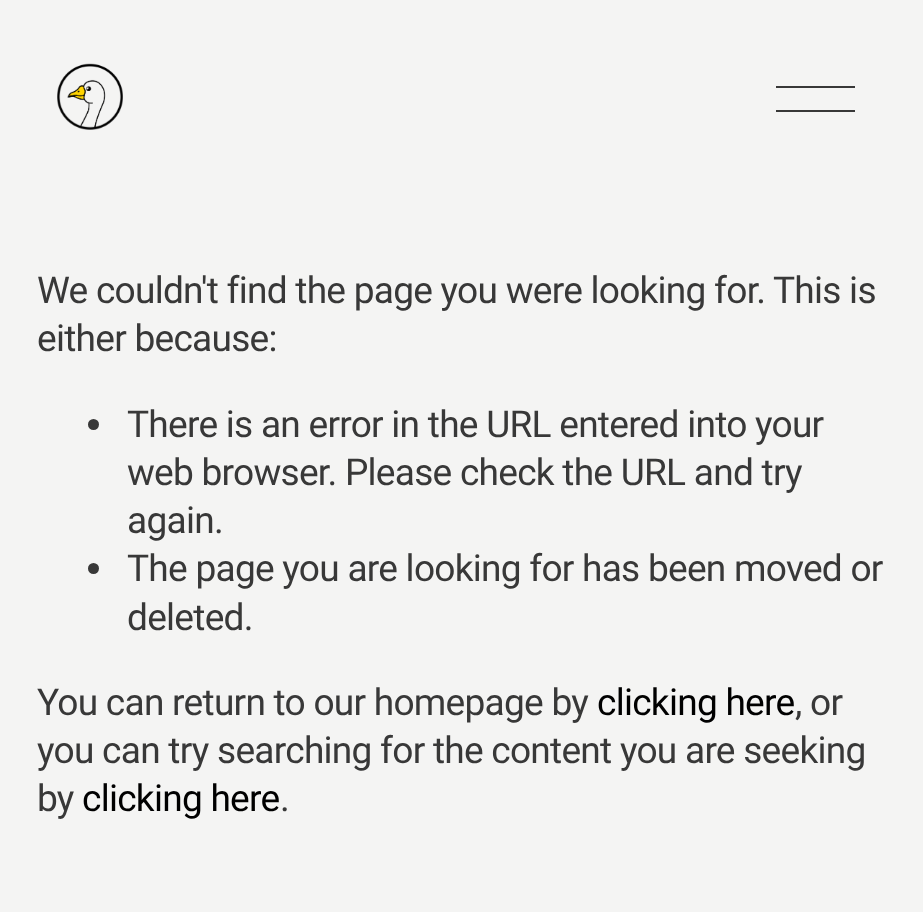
(async () => {
  const canvas = document.querySelector("canvas");
  canvas.width = 923;
  canvas.height = 912;
  const ctx = canvas.getContext("2d");
  ctx.miterLimit = 4;
  ctx.fontKerning = "normal";
  async function loadImage(src) {
    const img = new Image();
    img.src = src;
    await img.decode();
    return img;
  }

  ctx.fillStyle = "#f4f4f3";
  ctx.fillRect(0, 0, 923, 912);
  ctx.drawImage(await loadImage("img/1.png"), 57, 63, 66, 67);
  ctx.fillStyle = "#383838";
  ctx.fillRect(776, 86, 79, 2);
  ctx.fillRect(776, 110, 79, 2);
  ctx.beginPath();
  ctx.arc(93.5, 424.5, 5.5, 0, Math.PI * 2);
  ctx.fill();
  ctx.beginPath();
  ctx.arc(93.5, 568.5, 5.5, 0, Math.PI * 2);
  ctx.fill();
  ctx.letterSpacing = "-0.75px";
  ctx.font = "37.1px Roboto";
  for (const [text, x, y] of [
    ["We couldn't find the page you were looking for. This is", 37, 303],
    ["either because:", 37, 351],
    ["There is an error in the URL entered into your", 127, 437],
    ["web browser. Please check the URL and try", 127, 485],
    ["again.", 127, 533],
    ["The page you are looking for has been moved or", 127, 581],
    ["deleted.", 127, 630],
    ["You can return to our homepage by", 37, 715],
  ]) {
    ctx.fillText(text, x, y);
  }
  ctx.fillStyle = "#000000";
  ctx.fillText("clicking here", 597, 715);
  ctx.fillStyle = "#383838";
  for (const [text, x, y] of [
    [", or", 795, 715],
    ["you can try searching for the content you are seeking", 37, 763],
    ["by", 37, 811],
  ]) {
    ctx.fillText(text, x, y);
  }
  ctx.fillStyle = "#000000";
  ctx.fillText("clicking here", 82, 811);
  ctx.fillStyle = "#383838";
  ctx.fillText(".", 280, 811);
})();
